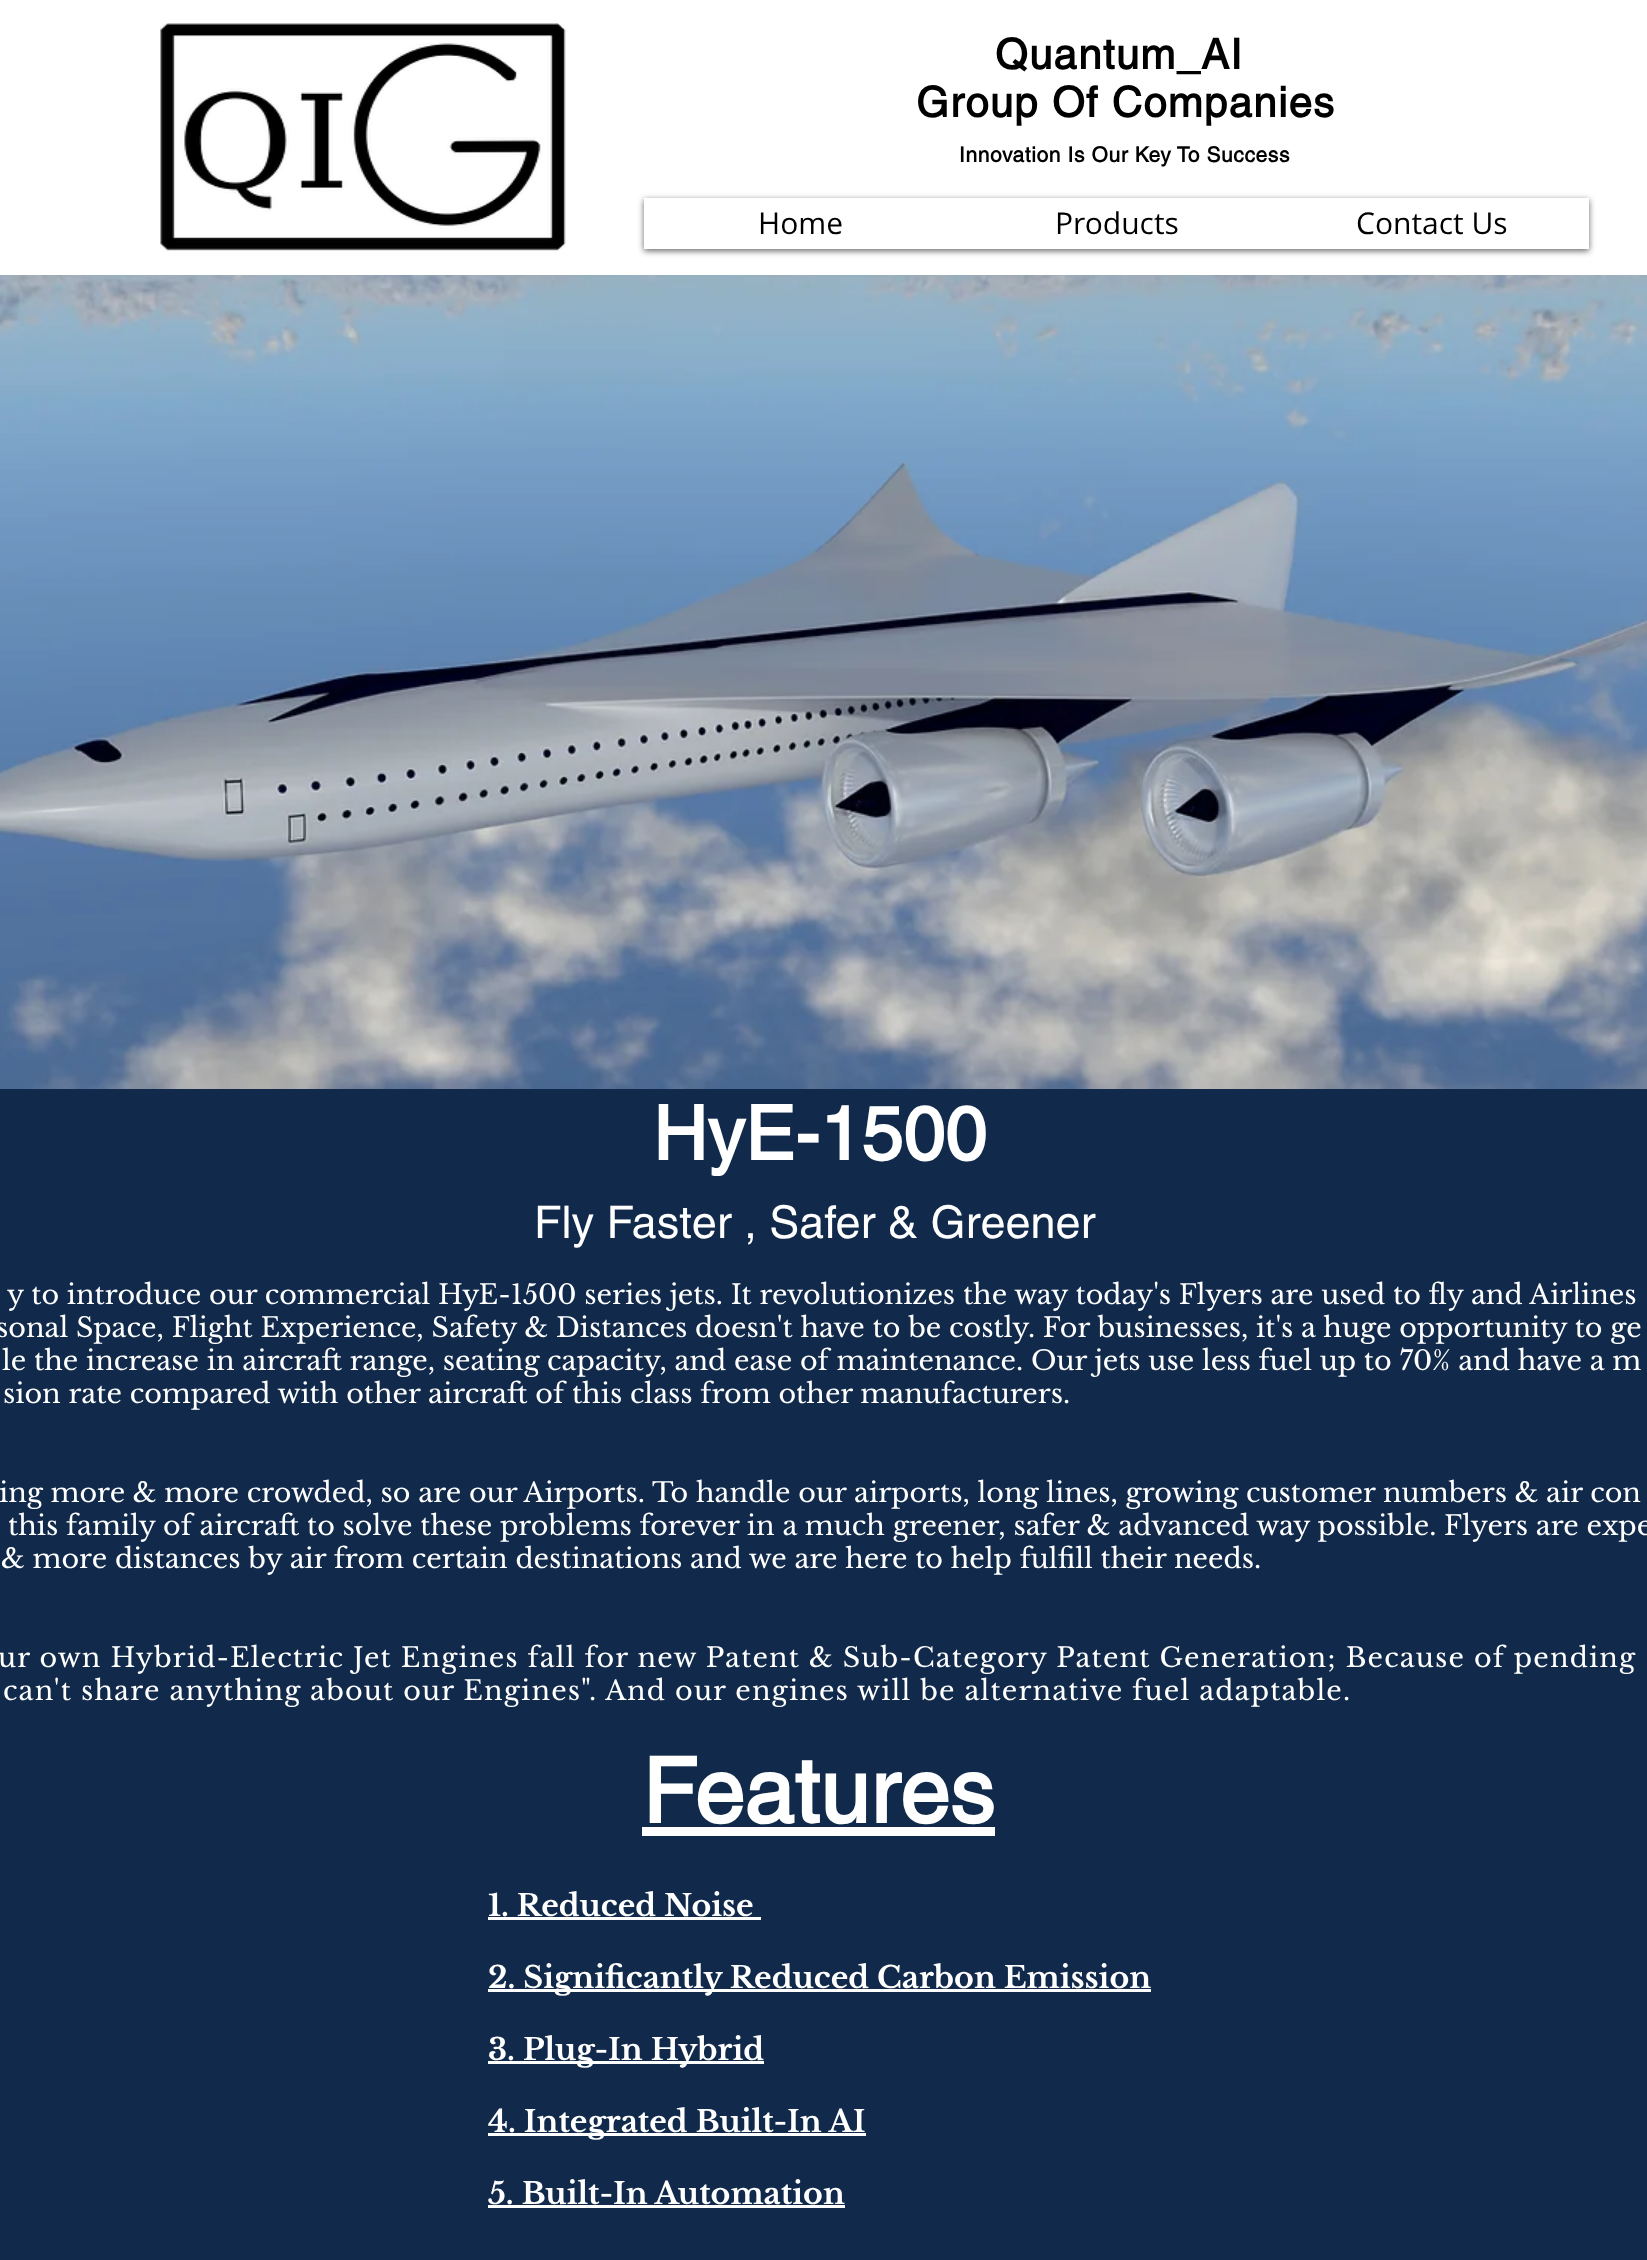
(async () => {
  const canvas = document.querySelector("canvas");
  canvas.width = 1647;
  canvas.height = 2260;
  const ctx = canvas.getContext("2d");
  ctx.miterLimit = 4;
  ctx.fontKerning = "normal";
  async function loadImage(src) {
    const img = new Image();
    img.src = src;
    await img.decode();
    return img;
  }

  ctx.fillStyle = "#112a4b";
  ctx.fillRect(0, 0, 1647, 2260);
  ctx.fillStyle = "#ffffff";
  ctx.fillRect(0, 0, 1647, 275);
  ctx.drawImage(await loadImage("img/1.png"), 160, 23, 406, 228);
  ctx.fillStyle = "rgba(0, 0, 0, 0.6)";
  ctx.filter = "blur(3px)";
  ctx.beginPath();
  ctx.rect(644, 200, 945, 51);
  ctx.fill();
  ctx.filter = "none";
  ctx.fillStyle = "#ffffff";
  ctx.fillRect(644, 198, 945, 51);
  ctx.drawImage(await loadImage("img/2.png"), 0, 275, 1647, 814);
  for (const [x, y, w, h, color] of [
    [642, 1827, 353, 9, "#ffffff"],
    [488, 1917, 273, 3, "#ffffff"],
    [488, 1989, 663, 3, "#ffffff"],
    [488, 2061, 276, 3, "#ffffff"],
    [488, 2133, 378, 3, "#ffffff"],
    [488, 2205, 357, 3, "#ffffff"],
  ]) {
    ctx.fillStyle = color;
    ctx.fillRect(x, y, w, h);
  }
  ctx.letterSpacing = "1.25px";
  ctx.font = "bold 42px helvetica";
  ctx.fillStyle = "#000000";
  ctx.fillText("Quantum_AI", 995, 69);
  ctx.fillText("Group Of Companies", 916, 117);
  ctx.letterSpacing = "0.6px";
  ctx.font = "bold 21px helvetica";
  ctx.fillText("Innovation Is Our Key To Success", 959, 162);
  ctx.letterSpacing = "0px";
  ctx.font = "30px Open Sans";
  for (const [text, x, y] of [
    ["Home", 758, 234],
    ["Products", 1055, 234],
    ["Contact Us", 1356, 234],
  ]) {
    ctx.fillText(text, x, y);
  }
  ctx.font = "bold 75px helvetica";
  ctx.fillStyle = "#ffffff";
  ctx.fillText("HyE-1500", 653, 1160);
  ctx.font = "45px helvetica";
  ctx.fillText("Fly Faster , Safer & Greener", 534, 1238);
  ctx.font = "27px Libre Baskerville";
  for (const [text, x, y] of [
    ["y to introduce our commercial HyE-1500 series jets. It revolutionizes the way today's Flyers are used to fly and Airlines", 7, 1304],
    ["sonal Space, Flight Experience, Safety & Distances doesn't have to be costly. For businesses, it's a huge opportunity to ge", -4, 1337],
    ["le the increase in aircraft range, seating capacity, and ease of maintenance. Our jets use less fuel up to 70% and have a m", 2, 1370],
    ["sion rate compared with other aircraft of this class from other manufacturers.", 3, 1403],
    ["ing more & more crowded, so are our Airports. To handle our airports, long lines, growing customer numbers & air con", -1, 1502],
    ["this family of aircraft to solve these problems forever in a much greener, safer & advanced way possible. Flyers are expe", 8, 1535],
    ["& more distances by air from certain destinations and we are here to help fulfill their needs.", 1, 1568],
  ]) {
    ctx.fillText(text, x, y);
  }
  ctx.letterSpacing = "1.13px";
  ctx.fillText("ur own Hybrid-Electric Jet Engines fall for new Patent & Sub-Category Patent Generation; Because of pending", -2, 1667);
  ctx.fillText("can't share anything about our Engines\". And our engines will be alternative fuel adaptable.", 3, 1700);
  ctx.letterSpacing = "0px";
  ctx.font = "bold 90px helvetica";
  ctx.fillText("Features", 642, 1823);
  ctx.font = "bold 30px Libre Baskerville";
  for (const [text, x, y] of [
    ["1. Reduced Noise", 488, 1916],
    ["2. Significantly Reduced Carbon Emission", 488, 1988],
    ["3. Plug-In Hybrid", 488, 2060],
    ["4. Integrated Built-In AI", 488, 2132],
    ["5. Built-In Automation", 488, 2204],
  ]) {
    ctx.fillText(text, x, y);
  }
})();
